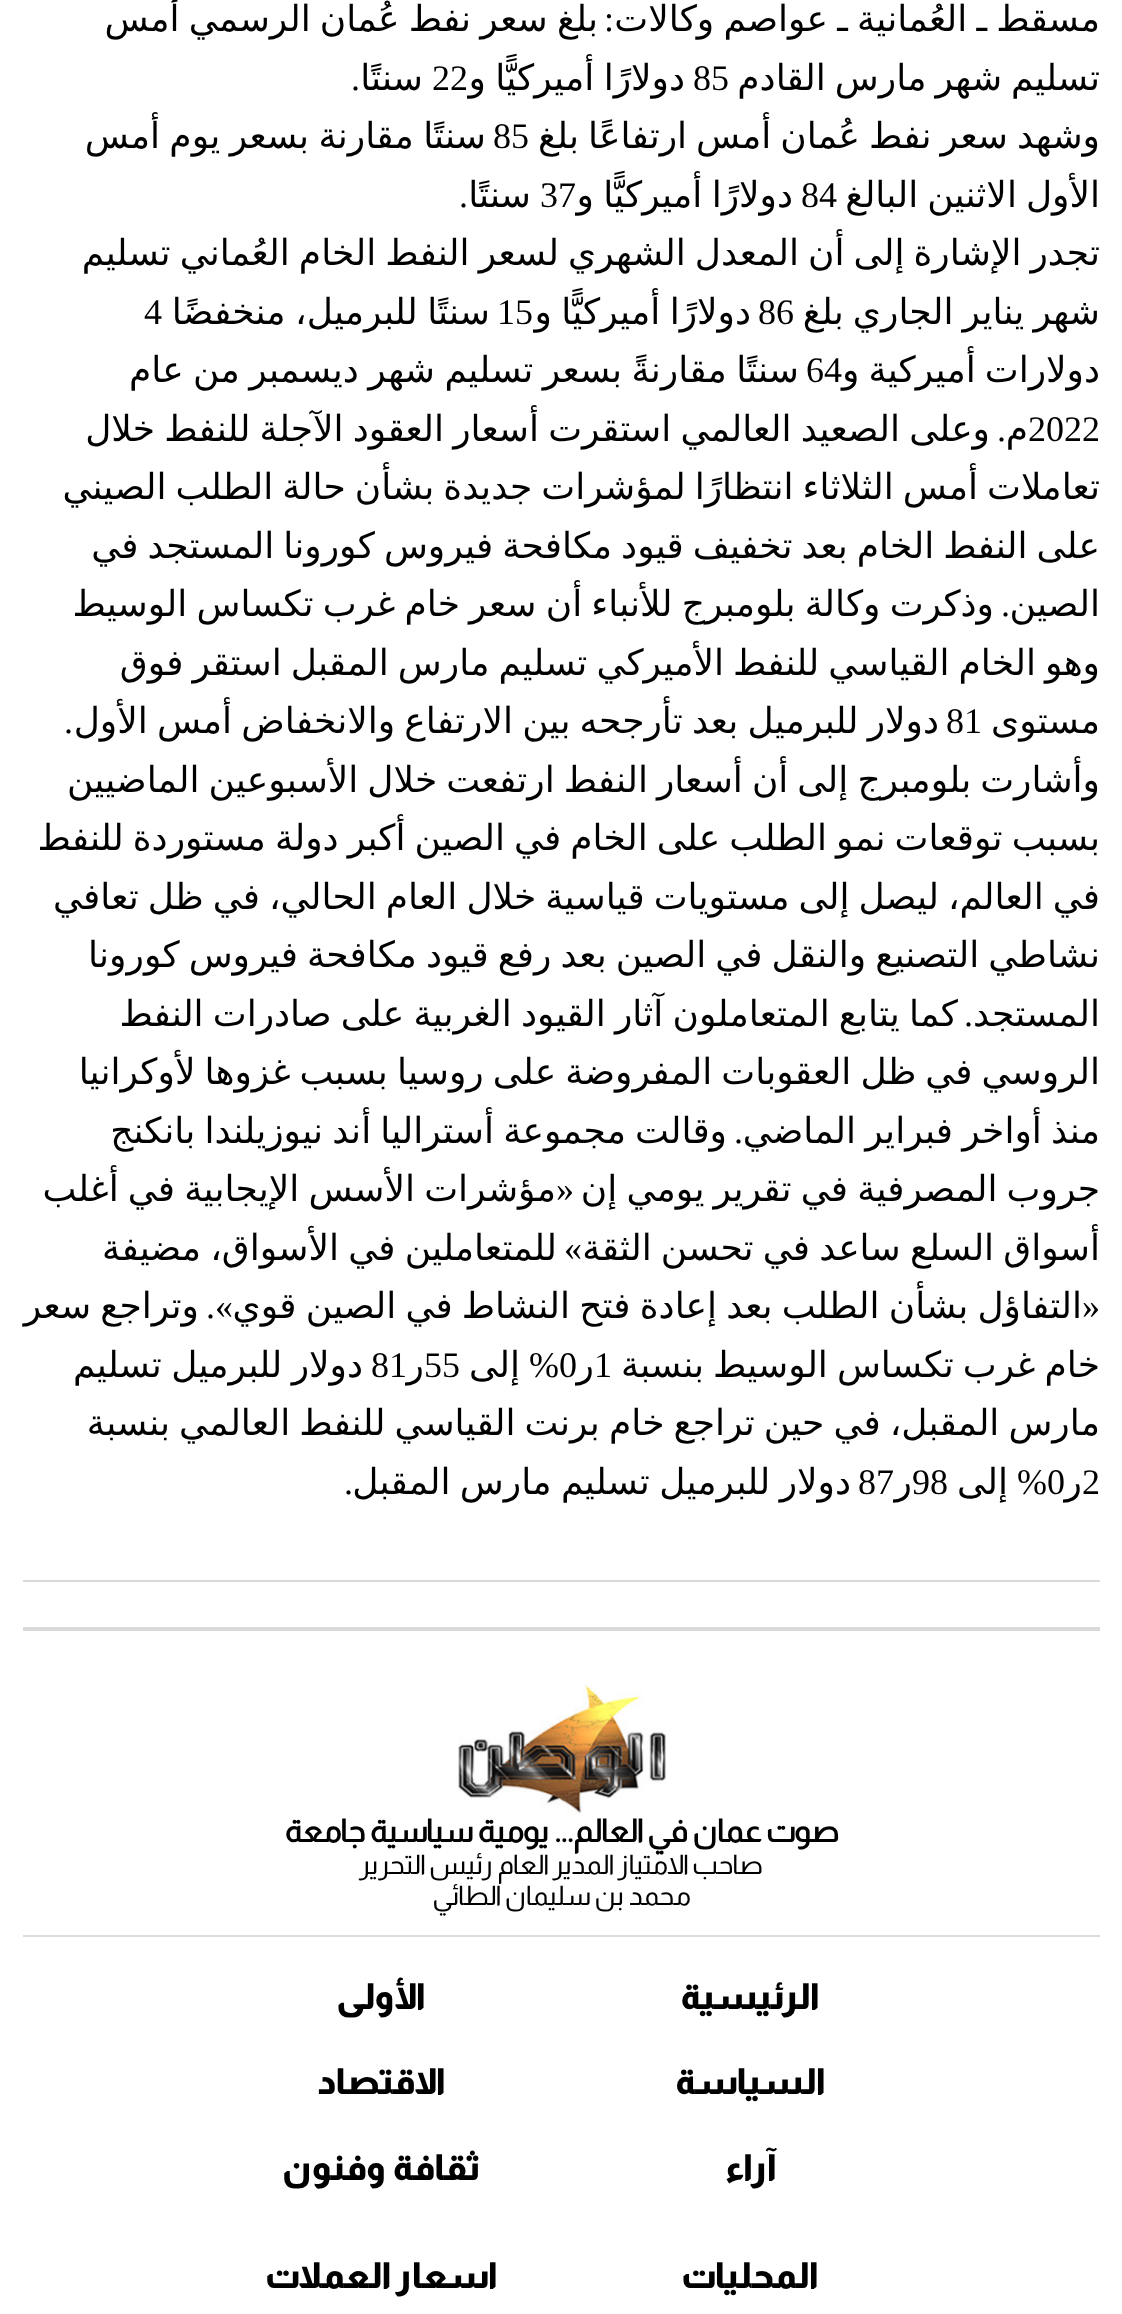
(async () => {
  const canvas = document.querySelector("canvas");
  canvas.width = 1122;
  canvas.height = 2314;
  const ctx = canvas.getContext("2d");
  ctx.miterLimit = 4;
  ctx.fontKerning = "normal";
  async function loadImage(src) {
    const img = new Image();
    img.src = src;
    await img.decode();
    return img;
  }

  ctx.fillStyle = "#ffffff";
  ctx.fillRect(0, 0, 1122, 2314);
  ctx.fillStyle = "#d9d9d9";
  ctx.fillRect(23, 1580, 1077, 2);
  ctx.fillRect(23, 1627, 1077, 4);
  ctx.drawImage(await loadImage("img/1.png"), 458, 1684, 208, 130);
  ctx.fillStyle = "#dddddd";
  ctx.fillRect(23, 1935, 1077, 2);
  ctx.wordSpacing = "-2.25px";
  ctx.direction = "rtl";
  ctx.font = "36px DejaVu Sans";
  ctx.fillStyle = "#000000";
  ctx.fillText("مسقط ـ العُمانية ـ عواصم وكالات", 1100, 31);
  ctx.wordSpacing = "0px";
  ctx.font = "36px Liberation Serif";
  ctx.fillText(":", 614, 31);
  ctx.wordSpacing = "-2.25px";
  ctx.font = "36px DejaVu Sans";
  ctx.fillText("بلغ سعر نفط عُمان الرسمي أمس", 598, 31);
  ctx.wordSpacing = "-2.4px";
  ctx.fillText("تسليم شهر مارس القادم", 1100, 90);
  ctx.wordSpacing = "0px";
  ctx.direction = "ltr";
  ctx.font = "36px Liberation Serif";
  ctx.fillText("85", 693, 90);
  ctx.wordSpacing = "-2px";
  ctx.direction = "rtl";
  ctx.font = "36px DejaVu Sans";
  ctx.fillText("دولارًا أميركيًّا و", 685, 90);
  ctx.wordSpacing = "0px";
  ctx.direction = "ltr";
  ctx.font = "36px Liberation Serif";
  ctx.fillText("22", 432, 90);
  ctx.direction = "rtl";
  ctx.font = "36px DejaVu Sans";
  ctx.fillText("سنتًا", 423, 90);
  ctx.font = "36px Liberation Serif";
  ctx.fillText(".", 360, 90);
  ctx.wordSpacing = "-2.4px";
  ctx.font = "36px DejaVu Sans";
  ctx.fillText("وشهد سعر نفط عُمان أمس ارتفاعًا بلغ", 1100, 148);
  ctx.wordSpacing = "0px";
  ctx.direction = "ltr";
  ctx.font = "36px Liberation Serif";
  ctx.fillText("85", 493, 148);
  ctx.wordSpacing = "-2px";
  ctx.direction = "rtl";
  ctx.font = "36px DejaVu Sans";
  ctx.fillText("سنتًا مقارنة بسعر يوم أمس", 486, 148);
  ctx.wordSpacing = "-2.4px";
  ctx.fillText("الأول الاثنين البالغ", 1100, 207);
  ctx.wordSpacing = "0px";
  ctx.direction = "ltr";
  ctx.font = "36px Liberation Serif";
  ctx.fillText("84", 801, 207);
  ctx.fillText("37", 540, 207);
  ctx.wordSpacing = "-2px";
  ctx.direction = "rtl";
  ctx.font = "36px DejaVu Sans";
  ctx.fillText("دولارًا أميركيًّا و", 793, 207);
  ctx.wordSpacing = "0px";
  ctx.fillText("سنتًا", 531, 207);
  ctx.font = "36px Liberation Serif";
  ctx.fillText(".", 468, 207);
  ctx.wordSpacing = "-2.4px";
  ctx.font = "36px DejaVu Sans";
  ctx.fillText("تجدر الإشارة إلى أن المعدل الشهري لسعر النفط الخام العُماني تسليم", 1100, 265);
  ctx.fillText("شهر يناير الجاري بلغ", 1100, 324);
  ctx.wordSpacing = "0px";
  ctx.direction = "ltr";
  ctx.font = "36px Liberation Serif";
  ctx.fillText("86", 758, 324);
  ctx.fillText("15", 497, 324);
  ctx.wordSpacing = "-2px";
  ctx.direction = "rtl";
  ctx.font = "36px DejaVu Sans";
  ctx.fillText("دولارًا أميركيًّا و", 751, 324);
  ctx.fillText("سنتًا للبرميل، منخفضًا", 490, 324);
  ctx.wordSpacing = "0px";
  ctx.direction = "ltr";
  ctx.font = "36px Liberation Serif";
  ctx.fillText("4", 144, 324);
  ctx.fillText("64", 806, 382);
  ctx.wordSpacing = "-2.4px";
  ctx.direction = "rtl";
  ctx.font = "36px DejaVu Sans";
  ctx.fillText("دولارات أميركية و", 1100, 382);
  ctx.wordSpacing = "-2px";
  ctx.fillText("سنتًا مقارنةً بسعر تسليم شهر ديسمبر من عام", 799, 382);
  ctx.wordSpacing = "0px";
  ctx.direction = "ltr";
  ctx.font = "36px Liberation Serif";
  ctx.fillText("2022", 1028, 441);
  ctx.direction = "rtl";
  ctx.font = "36px DejaVu Sans";
  ctx.fillText("م", 1028, 441);
  ctx.font = "36px Liberation Serif";
  ctx.fillText(".", 1006, 441);
  ctx.wordSpacing = "-2.25px";
  ctx.font = "36px DejaVu Sans";
  ctx.fillText("وعلى الصعيد العالمي استقرت أسعار العقود الآجلة للنفط خلال", 990, 441);
  ctx.wordSpacing = "-2.4px";
  ctx.fillText("تعاملات أمس الثلاثاء انتظارًا لمؤشرات جديدة بشأن حالة الطلب الصيني", 1100, 499);
  ctx.fillText("على النفط الخام بعد تخفيف قيود مكافحة فيروس كورونا المستجد في", 1100, 558);
  ctx.wordSpacing = "0px";
  ctx.fillText("الصين", 1100, 616);
  ctx.font = "36px Liberation Serif";
  ctx.fillText(".", 1010, 616);
  ctx.wordSpacing = "-2.25px";
  ctx.font = "36px DejaVu Sans";
  ctx.fillText("وذكرت وكالة بلومبرج للأنباء أن سعر خام غرب تكساس الوسيط", 994, 616);
  ctx.wordSpacing = "-2.4px";
  ctx.fillText("وهو الخام القياسي للنفط الأميركي تسليم مارس المقبل استقر فوق", 1100, 675);
  ctx.wordSpacing = "0px";
  ctx.fillText("مستوى", 1100, 733);
  ctx.direction = "ltr";
  ctx.font = "36px Liberation Serif";
  ctx.fillText("81", 946, 733);
  ctx.wordSpacing = "-2.25px";
  ctx.direction = "rtl";
  ctx.font = "36px DejaVu Sans";
  ctx.fillText("دولار للبرميل بعد تأرجحه بين الارتفاع والانخفاض أمس الأول", 939, 733);
  ctx.wordSpacing = "0px";
  ctx.font = "36px Liberation Serif";
  ctx.fillText(".", 73, 733);
  ctx.wordSpacing = "-2.4px";
  ctx.font = "36px DejaVu Sans";
  for (const [text, x, y] of [
    ["وأشارت بلومبرج إلى أن أسعار النفط ارتفعت خلال الأسبوعين الماضيين", 1100, 792],
    ["بسبب توقعات نمو الطلب على الخام في الصين أكبر دولة مستوردة للنفط", 1100, 850],
    ["في العالم، ليصل إلى مستويات قياسية خلال العام الحالي، في ظل تعافي", 1100, 909],
    ["نشاطي التصنيع والنقل في الصين بعد رفع قيود مكافحة فيروس كورونا", 1100, 967],
  ]) {
    ctx.fillText(text, x, y);
  }
  ctx.wordSpacing = "0px";
  ctx.fillText("المستجد", 1100, 1026);
  ctx.font = "36px Liberation Serif";
  ctx.fillText(".", 973, 1026);
  ctx.wordSpacing = "-2.25px";
  ctx.font = "36px DejaVu Sans";
  ctx.fillText("كما يتابع المتعاملون آثار القيود الغربية على صادرات النفط", 958, 1026);
  ctx.wordSpacing = "-2.4px";
  ctx.fillText("الروسي في ظل العقوبات المفروضة على روسيا بسبب غزوها لأوكرانيا", 1100, 1084);
  ctx.wordSpacing = "-2.25px";
  ctx.fillText("منذ أواخر فبراير الماضي", 1100, 1143);
  ctx.wordSpacing = "0px";
  ctx.font = "36px Liberation Serif";
  ctx.fillText(".", 743, 1143);
  ctx.wordSpacing = "-2.25px";
  ctx.font = "36px DejaVu Sans";
  ctx.fillText("وقالت مجموعة أستراليا أند نيوزيلندا بانكنج", 727, 1143);
  ctx.fillText("جروب المصرفية في تقرير يومي إن", 1100, 1201);
  ctx.wordSpacing = "0px";
  ctx.font = "36px Liberation Serif";
  ctx.fillText("«", 574, 1201);
  ctx.wordSpacing = "-2.25px";
  ctx.font = "36px DejaVu Sans";
  ctx.fillText("مؤشرات الأسس الإيجابية في أغلب", 556, 1201);
  ctx.fillText("أسواق السلع ساعد في تحسن الثقة", 1100, 1260);
  ctx.wordSpacing = "0px";
  ctx.font = "36px Liberation Serif";
  ctx.fillText("»", 582, 1260);
  ctx.wordSpacing = "-2.25px";
  ctx.font = "36px DejaVu Sans";
  ctx.fillText("للمتعاملين في الأسواق، مضيفة", 557, 1260);
  ctx.wordSpacing = "0px";
  ctx.font = "36px Liberation Serif";
  ctx.fillText("«", 1100, 1318);
  ctx.wordSpacing = "-2.25px";
  ctx.font = "36px DejaVu Sans";
  ctx.fillText("التفاؤل بشأن الطلب بعد إعادة فتح النشاط في الصين قوي", 1082, 1318);
  ctx.wordSpacing = "0px";
  ctx.font = "36px Liberation Serif";
  ctx.fillText("».", 233, 1318);
  ctx.wordSpacing = "-2.25px";
  ctx.font = "36px DejaVu Sans";
  ctx.fillText("وتراجع سعر", 199, 1318);
  ctx.wordSpacing = "-2.4px";
  ctx.fillText("خام غرب تكساس الوسيط بنسبة", 1100, 1377);
  ctx.wordSpacing = "0px";
  ctx.direction = "ltr";
  ctx.font = "36px Liberation Serif";
  ctx.fillText("1", 594, 1377);
  ctx.fillText("0", 559, 1377);
  ctx.direction = "rtl";
  ctx.font = "36px DejaVu Sans";
  ctx.fillText("ر", 594, 1377);
  ctx.font = "36px Liberation Serif";
  ctx.fillText("%", 559, 1377);
  ctx.font = "36px DejaVu Sans";
  ctx.fillText("إلى", 520, 1377);
  ctx.direction = "ltr";
  ctx.font = "36px Liberation Serif";
  ctx.fillText("55", 424, 1377);
  ctx.direction = "rtl";
  ctx.font = "36px DejaVu Sans";
  ctx.fillText("ر", 424, 1377);
  ctx.direction = "ltr";
  ctx.font = "36px Liberation Serif";
  ctx.fillText("81", 371, 1377);
  ctx.wordSpacing = "-2px";
  ctx.direction = "rtl";
  ctx.font = "36px DejaVu Sans";
  ctx.fillText("دولار للبرميل تسليم", 363, 1377);
  ctx.wordSpacing = "-2.4px";
  ctx.fillText("مارس المقبل، في حين تراجع خام برنت القياسي للنفط العالمي بنسبة", 1100, 1435);
  ctx.wordSpacing = "0px";
  ctx.direction = "ltr";
  ctx.font = "36px Liberation Serif";
  ctx.fillText("2", 1082, 1494);
  ctx.fillText("0", 1047, 1494);
  ctx.direction = "rtl";
  ctx.font = "36px DejaVu Sans";
  ctx.fillText("ر", 1082, 1494);
  ctx.font = "36px Liberation Serif";
  ctx.fillText("%", 1047, 1494);
  ctx.font = "36px DejaVu Sans";
  ctx.fillText("إلى", 1008, 1494);
  ctx.direction = "ltr";
  ctx.font = "36px Liberation Serif";
  ctx.fillText("98", 912, 1494);
  ctx.fillText("87", 858, 1494);
  ctx.direction = "rtl";
  ctx.font = "36px DejaVu Sans";
  ctx.fillText("ر", 912, 1494);
  ctx.wordSpacing = "-2px";
  ctx.fillText("دولار للبرميل تسليم مارس المقبل", 851, 1494);
  ctx.wordSpacing = "0px";
  ctx.font = "36px Liberation Serif";
  ctx.fillText(".", 353, 1494);
  ctx.font = "bold 31.5px Almarai";
  ctx.fillText("صوت عمان في العالم... يومية سياسية جامعة", 839, 1842);
  ctx.font = "27px Almarai";
  ctx.fillText("صاحب الامتياز المدير العام رئيس التحرير", 763, 1874);
  ctx.fillText("محمد بن سليمان الطائي", 691, 1905);
  ctx.font = "800 36px Almarai";
  for (const [text, x, y] of [
    ["الرئيسية", 820, 2009],
    ["السياسة", 826, 2094],
    ["آراء", 777, 2180],
    ["الأولى", 426, 2009],
    ["الاقتصاد", 446, 2094],
    ["ثقافة وفنون", 481, 2180],
    ["المحليات", 819, 2288],
    ["اسعار العملات", 498, 2288],
  ]) {
    ctx.fillText(text, x, y);
  }
})();
